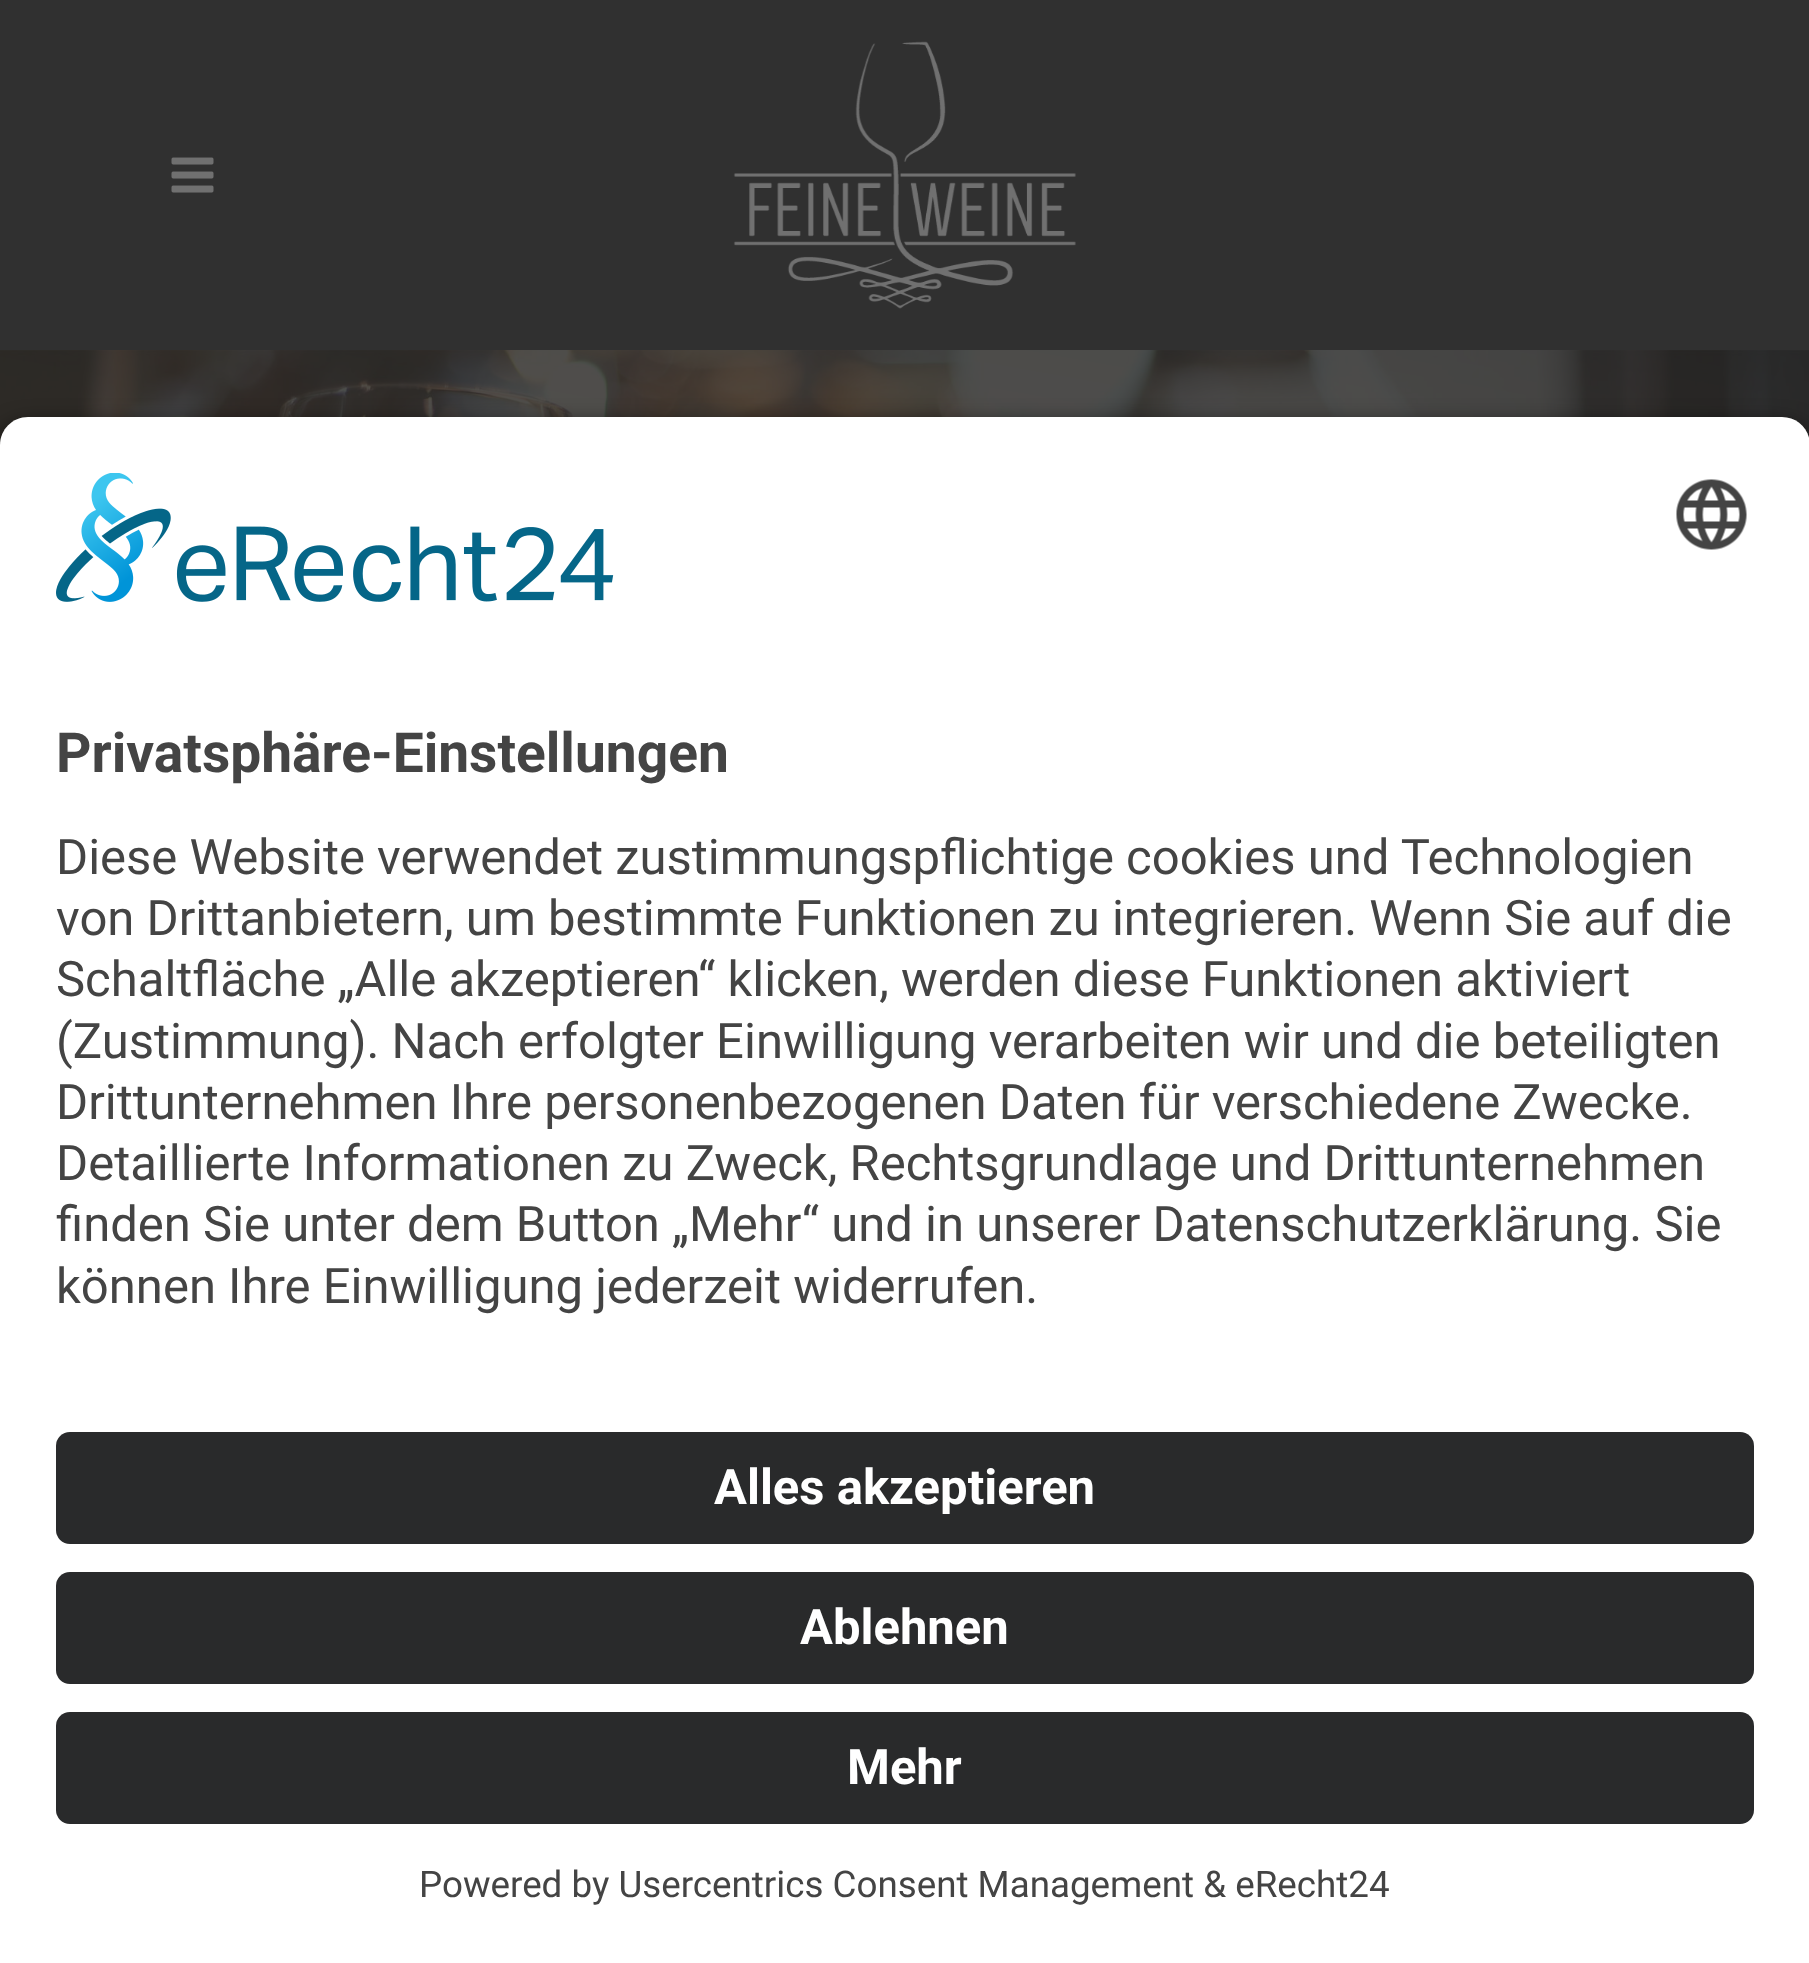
(async () => {
  const canvas = document.querySelector("canvas");
  canvas.width = 1809;
  canvas.height = 1963;
  const ctx = canvas.getContext("2d");
  ctx.miterLimit = 4;
  ctx.fontKerning = "normal";
  async function loadImage(src) {
    const img = new Image();
    img.src = src;
    await img.decode();
    return img;
  }
  let path;

  ctx.fillStyle = "#ffffff";
  ctx.fillRect(0, 0, 1809, 1963);
  ctx.fillStyle = "#303030";
  ctx.fillRect(0, 0, 1809, 350);
  ctx.drawImage(await loadImage("img/1.png"), 171, 157, 43, 36);
  ctx.drawImage(await loadImage("img/2.png"), 733, 41, 343, 268);
  ctx.drawImage(await loadImage("img/3.png"), 0, 350, 1809, 95);
  ctx.fillStyle = "rgba(0, 0, 0, 0.8)";
  ctx.filter = "blur(12px)";
  ctx.beginPath();
  ctx.roundRect(0, 427, 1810, 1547, 28);
  ctx.fill();
  ctx.filter = "none";
  ctx.fillStyle = "#ffffff";
  path = new Path2D("M28 417H1782C1797.5 417 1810 429.5 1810 445V1390H0V445C0 429.5 12.5 417 28 417Z");
  ctx.fill(path);
  ctx.drawImage(await loadImage("img/4.png"), 56, 473, 558, 129);
  ctx.drawImage(await loadImage("img/5.png"), 1676, 479, 71, 71);
  ctx.fillRect(0, 1390, 1809, 573);
  ctx.fillStyle = "#292a2b";
  ctx.beginPath();
  ctx.roundRect(56, 1432, 1698, 112, 14);
  ctx.fill();
  ctx.beginPath();
  ctx.roundRect(56, 1572, 1698, 112, 14);
  ctx.fill();
  ctx.beginPath();
  ctx.roundRect(56, 1712, 1698, 112, 14);
  ctx.fill();
  ctx.font = "bold 55.1px Roboto";
  ctx.fillStyle = "#444444";
  ctx.fillText("Privatsphäre-Einstellungen", 56, 772);
  ctx.font = "49px Roboto";
  for (const [text, x, y] of [
    ["Diese Website verwendet zustimmungspflichtige cookies und Technologien", 56, 874],
    ["von Drittanbietern, um bestimmte Funktionen zu integrieren. Wenn Sie auf die", 56, 935],
    ["Schaltfläche „Alle akzeptieren“ klicken, werden diese Funktionen aktiviert", 56, 996],
    ["(Zustimmung). Nach erfolgter Einwilligung verarbeiten wir und die beteiligten", 56, 1058],
    ["Drittunternehmen Ihre personenbezogenen Daten für verschiedene Zwecke.", 56, 1119],
    ["Detaillierte Informationen zu Zweck, Rechtsgrundlage und Drittunternehmen", 56, 1180],
    ["finden Sie unter dem Button „Mehr“ und in unserer Datenschutzerklärung. Sie", 56, 1241],
    ["können Ihre Einwilligung jederzeit widerrufen.", 56, 1303],
  ]) {
    ctx.fillText(text, x, y);
  }
  ctx.font = "bold 49px Roboto";
  ctx.fillStyle = "#ffffff";
  for (const [text, x, y] of [
    ["Alles akzeptieren", 714, 1504],
    ["Ablehnen", 800, 1644],
    ["Mehr", 847, 1784],
  ]) {
    ctx.fillText(text, x, y);
  }
  ctx.font = "36.75px Roboto";
  ctx.fillStyle = "#444444";
  ctx.fillText("Powered by Usercentrics Consent Management & eRecht24", 419, 1897);
})();
